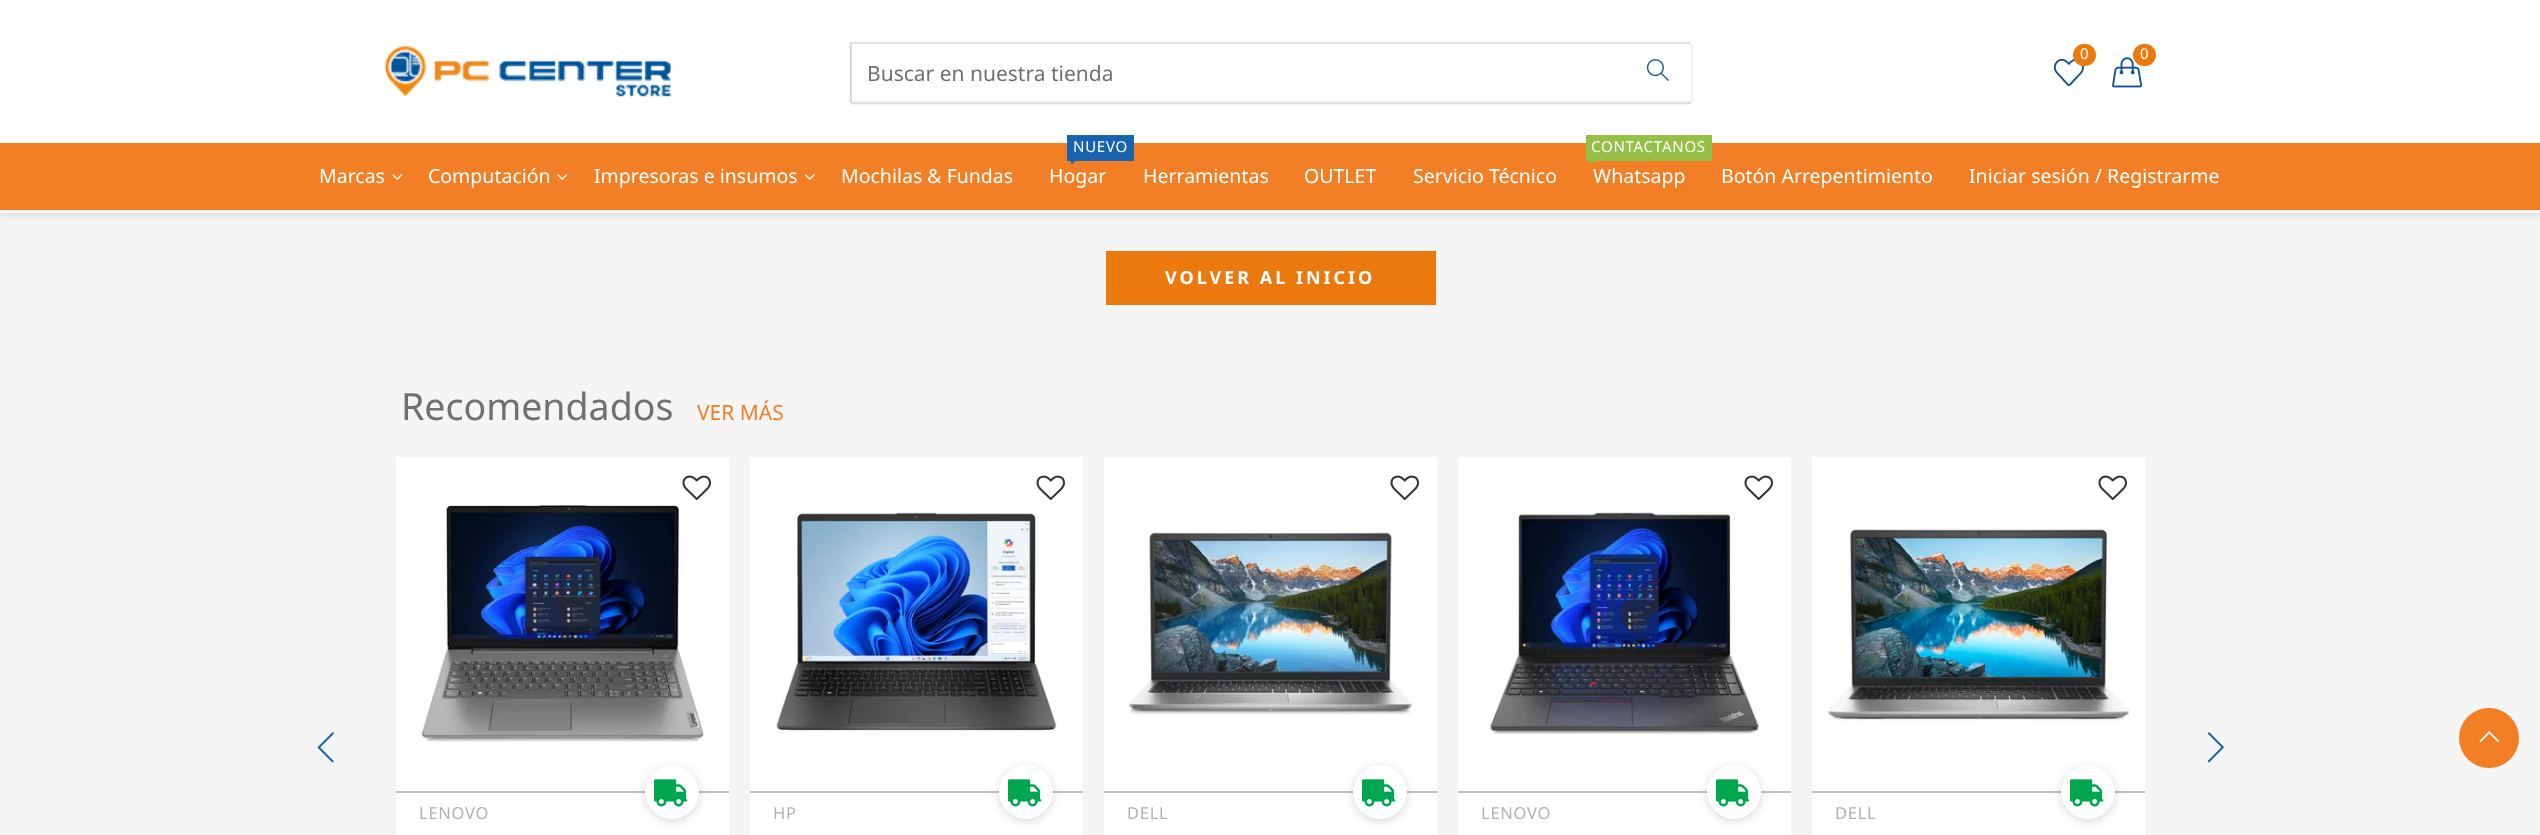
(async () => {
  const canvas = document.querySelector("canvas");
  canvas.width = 2540;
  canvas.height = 835;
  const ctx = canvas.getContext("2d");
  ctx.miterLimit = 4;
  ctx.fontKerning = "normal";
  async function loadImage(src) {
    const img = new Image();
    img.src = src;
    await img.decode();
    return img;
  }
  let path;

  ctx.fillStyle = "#f5f5f5";
  ctx.fillRect(0, 0, 2540, 835);
  ctx.fillStyle = "rgba(190, 190, 190, 0.5)";
  ctx.filter = "blur(4px)";
  ctx.beginPath();
  ctx.rect(0, 2, 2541, 213);
  ctx.fill();
  ctx.filter = "none";
  ctx.fillStyle = "#ffffff";
  ctx.fillRect(0, 0, 2540, 143);
  ctx.fillStyle = "#f5f5f5";
  ctx.fillRect(0, 210, 2540, 3);
  ctx.drawImage(await loadImage("img/1.png"), 385, 46, 286, 51);
  ctx.drawImage(await loadImage("img/2.png"), 2053, 58, 31, 28);
  ctx.fillStyle = "#ec790d";
  ctx.beginPath();
  ctx.roundRect(2073, 44, 23, 22, 11);
  ctx.fill();
  ctx.drawImage(await loadImage("img/3.png"), 2112, 57, 30, 31);
  ctx.beginPath();
  ctx.roundRect(2133, 44, 23, 22, 11);
  ctx.fill();
  ctx.fillStyle = "rgba(0, 0, 0, 0.2)";
  ctx.filter = "blur(1.5px)";
  ctx.beginPath();
  ctx.rect(851, 44, 840, 58);
  ctx.fill();
  ctx.filter = "none";
  ctx.fillStyle = "#ffffff";
  ctx.fillRect(851, 42, 840, 60);
  ctx.fillStyle = "#e0e0e0";
  path = new Path2D("M850 42H1690V44H852Z");
  ctx.fill(path);
  ctx.fillStyle = "rgba(129, 129, 129, 0.25)";
  path = new Path2D("M850 102V42L852 44V102Z");
  ctx.fill(path);
  ctx.drawImage(await loadImage("img/4.png"), 1646, 59, 23, 22);
  ctx.fillStyle = "rgba(0, 0, 0, 0.1)";
  ctx.filter = "blur(1.5px)";
  ctx.beginPath();
  ctx.rect(851, 102, 840, 2);
  ctx.fill();
  ctx.filter = "none";
  ctx.fillStyle = "#dddddd";
  ctx.fillRect(851, 102, 840, 2);
  ctx.fillStyle = "#f27f25";
  ctx.fillRect(0, 143, 2540, 67);
  ctx.drawImage(await loadImage("img/5.png"), 392, 174, 11, 6);
  ctx.drawImage(await loadImage("img/5.png"), 557, 174, 11, 6);
  ctx.drawImage(await loadImage("img/6.png"), 804, 174, 11, 6);
  ctx.fillStyle = "#1763af";
  ctx.fillRect(1067, 135, 67, 26);
  ctx.drawImage(await loadImage("img/7.png"), 1071, 161, 5, 3);
  ctx.fillStyle = "#95bf47";
  ctx.fillRect(1586, 135, 126, 26);
  ctx.drawImage(await loadImage("img/8.png"), 1590, 161, 4, 3);
  ctx.fillStyle = "#ec790d";
  ctx.fillRect(1106, 251, 330, 54);
  ctx.drawImage(await loadImage("img/9.png"), 317, 732, 17, 31);
  ctx.drawImage(await loadImage("img/10.png"), 2207, 732, 17, 31);
  ctx.fillStyle = "#ffffff";
  ctx.fillRect(396, 742, 333, 93);
  ctx.fillStyle = "#c1c1c1";
  ctx.fillRect(396, 791, 333, 2);
  ctx.drawImage(await loadImage("img/11.png"), 396, 457, 333, 285);
  ctx.drawImage(await loadImage("img/12.png"), 682, 475, 29, 25);
  ctx.fillStyle = "rgba(0, 0, 0, 0.16)";
  ctx.filter = "blur(5px)";
  ctx.beginPath();
  ctx.roundRect(645, 767, 54, 54, 27);
  ctx.fill();
  ctx.filter = "none";
  ctx.fillStyle = "#ffffff";
  ctx.beginPath();
  ctx.arc(672, 792, 27, 0, Math.PI * 2);
  ctx.fill();
  ctx.drawImage(await loadImage("img/13.png"), 654, 779, 34, 28);
  ctx.fillRect(750, 731, 333, 104);
  ctx.fillStyle = "#c1c1c1";
  ctx.fillRect(750, 791, 333, 2);
  ctx.drawImage(await loadImage("img/14.png"), 750, 457, 333, 274);
  ctx.drawImage(await loadImage("img/12.png"), 1036, 475, 29, 25);
  ctx.fillStyle = "rgba(0, 0, 0, 0.16)";
  ctx.filter = "blur(5px)";
  ctx.beginPath();
  ctx.roundRect(999, 767, 54, 54, 27);
  ctx.fill();
  ctx.filter = "none";
  ctx.fillStyle = "#ffffff";
  ctx.beginPath();
  ctx.arc(1026, 792, 27, 0, Math.PI * 2);
  ctx.fill();
  ctx.drawImage(await loadImage("img/13.png"), 1008, 779, 34, 28);
  ctx.fillRect(1104, 716, 333, 119);
  ctx.fillStyle = "#c1c1c1";
  ctx.fillRect(1104, 791, 333, 2);
  ctx.drawImage(await loadImage("img/15.png"), 1104, 457, 333, 259);
  ctx.drawImage(await loadImage("img/12.png"), 1390, 475, 29, 25);
  ctx.fillStyle = "rgba(0, 0, 0, 0.16)";
  ctx.filter = "blur(5px)";
  ctx.beginPath();
  ctx.roundRect(1353, 767, 54, 54, 27);
  ctx.fill();
  ctx.filter = "none";
  ctx.fillStyle = "#ffffff";
  ctx.beginPath();
  ctx.arc(1380, 792, 27, 0, Math.PI * 2);
  ctx.fill();
  ctx.drawImage(await loadImage("img/13.png"), 1362, 779, 34, 28);
  ctx.fillRect(1458, 735, 333, 100);
  ctx.fillStyle = "#c1c1c1";
  ctx.fillRect(1458, 791, 333, 2);
  ctx.drawImage(await loadImage("img/16.png"), 1458, 457, 333, 278);
  ctx.drawImage(await loadImage("img/12.png"), 1744, 475, 29, 25);
  ctx.fillStyle = "rgba(0, 0, 0, 0.16)";
  ctx.filter = "blur(5px)";
  ctx.beginPath();
  ctx.roundRect(1707, 767, 54, 54, 27);
  ctx.fill();
  ctx.filter = "none";
  ctx.fillStyle = "#ffffff";
  ctx.beginPath();
  ctx.arc(1734, 792, 27, 0, Math.PI * 2);
  ctx.fill();
  ctx.drawImage(await loadImage("img/13.png"), 1716, 779, 34, 28);
  ctx.fillRect(1812, 721, 333, 114);
  ctx.fillStyle = "#c1c1c1";
  ctx.fillRect(1812, 791, 333, 2);
  ctx.drawImage(await loadImage("img/17.png"), 1812, 457, 333, 264);
  ctx.drawImage(await loadImage("img/12.png"), 2098, 475, 29, 25);
  ctx.fillStyle = "rgba(0, 0, 0, 0.16)";
  ctx.filter = "blur(5px)";
  ctx.beginPath();
  ctx.roundRect(2061, 767, 54, 54, 27);
  ctx.fill();
  ctx.filter = "none";
  ctx.fillStyle = "#ffffff";
  ctx.beginPath();
  ctx.arc(2088, 792, 27, 0, Math.PI * 2);
  ctx.fill();
  ctx.drawImage(await loadImage("img/13.png"), 2070, 779, 34, 28);
  ctx.fillStyle = "#f27f25";
  ctx.beginPath();
  ctx.arc(2489, 738, 30, 0, Math.PI * 2);
  ctx.fill();
  ctx.drawImage(await loadImage("img/18.png"), 2479, 731, 20, 12);
  ctx.font = "15px Noto Sans";
  ctx.fillStyle = "#ffffff";
  ctx.fillText("0", 2080, 59);
  ctx.fillText("0", 2140, 59);
  ctx.font = "21px Noto Sans";
  ctx.fillStyle = "#707070";
  ctx.fillText("Buscar en nuestra tienda", 867, 81);
  ctx.font = "19.5px Noto Sans";
  ctx.fillStyle = "#ffffff";
  for (const [text, x, y] of [
    ["Marcas", 319, 183],
    ["Computación", 428, 183],
    ["Impresoras e insumos", 594, 183],
    ["Mochilas & Fundas", 841, 183],
  ]) {
    ctx.fillText(text, x, y);
  }
  ctx.letterSpacing = "0.75px";
  ctx.font = "15px Noto Sans";
  ctx.fillText("NUEVO", 1073, 152);
  ctx.letterSpacing = "0px";
  ctx.font = "19.5px Noto Sans";
  for (const [text, x, y] of [
    ["Hogar", 1049, 183],
    ["Herramientas", 1143, 183],
    ["OUTLET", 1304, 183],
    ["Servicio Técnico", 1413, 183],
  ]) {
    ctx.fillText(text, x, y);
  }
  ctx.letterSpacing = "0.75px";
  ctx.font = "15px Noto Sans";
  ctx.fillText("CONTACTANOS", 1591, 152);
  ctx.letterSpacing = "0px";
  ctx.font = "19.5px Noto Sans";
  for (const [text, x, y] of [
    ["Whatsapp", 1593, 183],
    ["Botón Arrepentimiento", 1721, 183],
    ["Iniciar sesión / Registrarme", 1969, 183],
  ]) {
    ctx.fillText(text, x, y);
  }
  ctx.letterSpacing = "3px";
  ctx.font = "bold 18px Noto Sans";
  ctx.fillText("VOLVER AL INICIO", 1165, 284);
  ctx.letterSpacing = "0px";
  ctx.font = "37.5px Noto Sans";
  ctx.fillStyle = "#707070";
  ctx.fillText("Recomendados", 401, 420);
  ctx.font = "21px Noto Sans";
  ctx.fillStyle = "#f27f25";
  ctx.fillText("VER MÁS", 697, 420);
  ctx.letterSpacing = "0.75px";
  ctx.font = "16.5px Noto Sans";
  ctx.fillStyle = "#b1b1b1";
  for (const [text, x, y] of [
    ["LENOVO", 419, 819],
    ["HP", 773, 819],
    ["DELL", 1127, 819],
    ["LENOVO", 1481, 819],
    ["DELL", 1835, 819],
  ]) {
    ctx.fillText(text, x, y);
  }
})();
